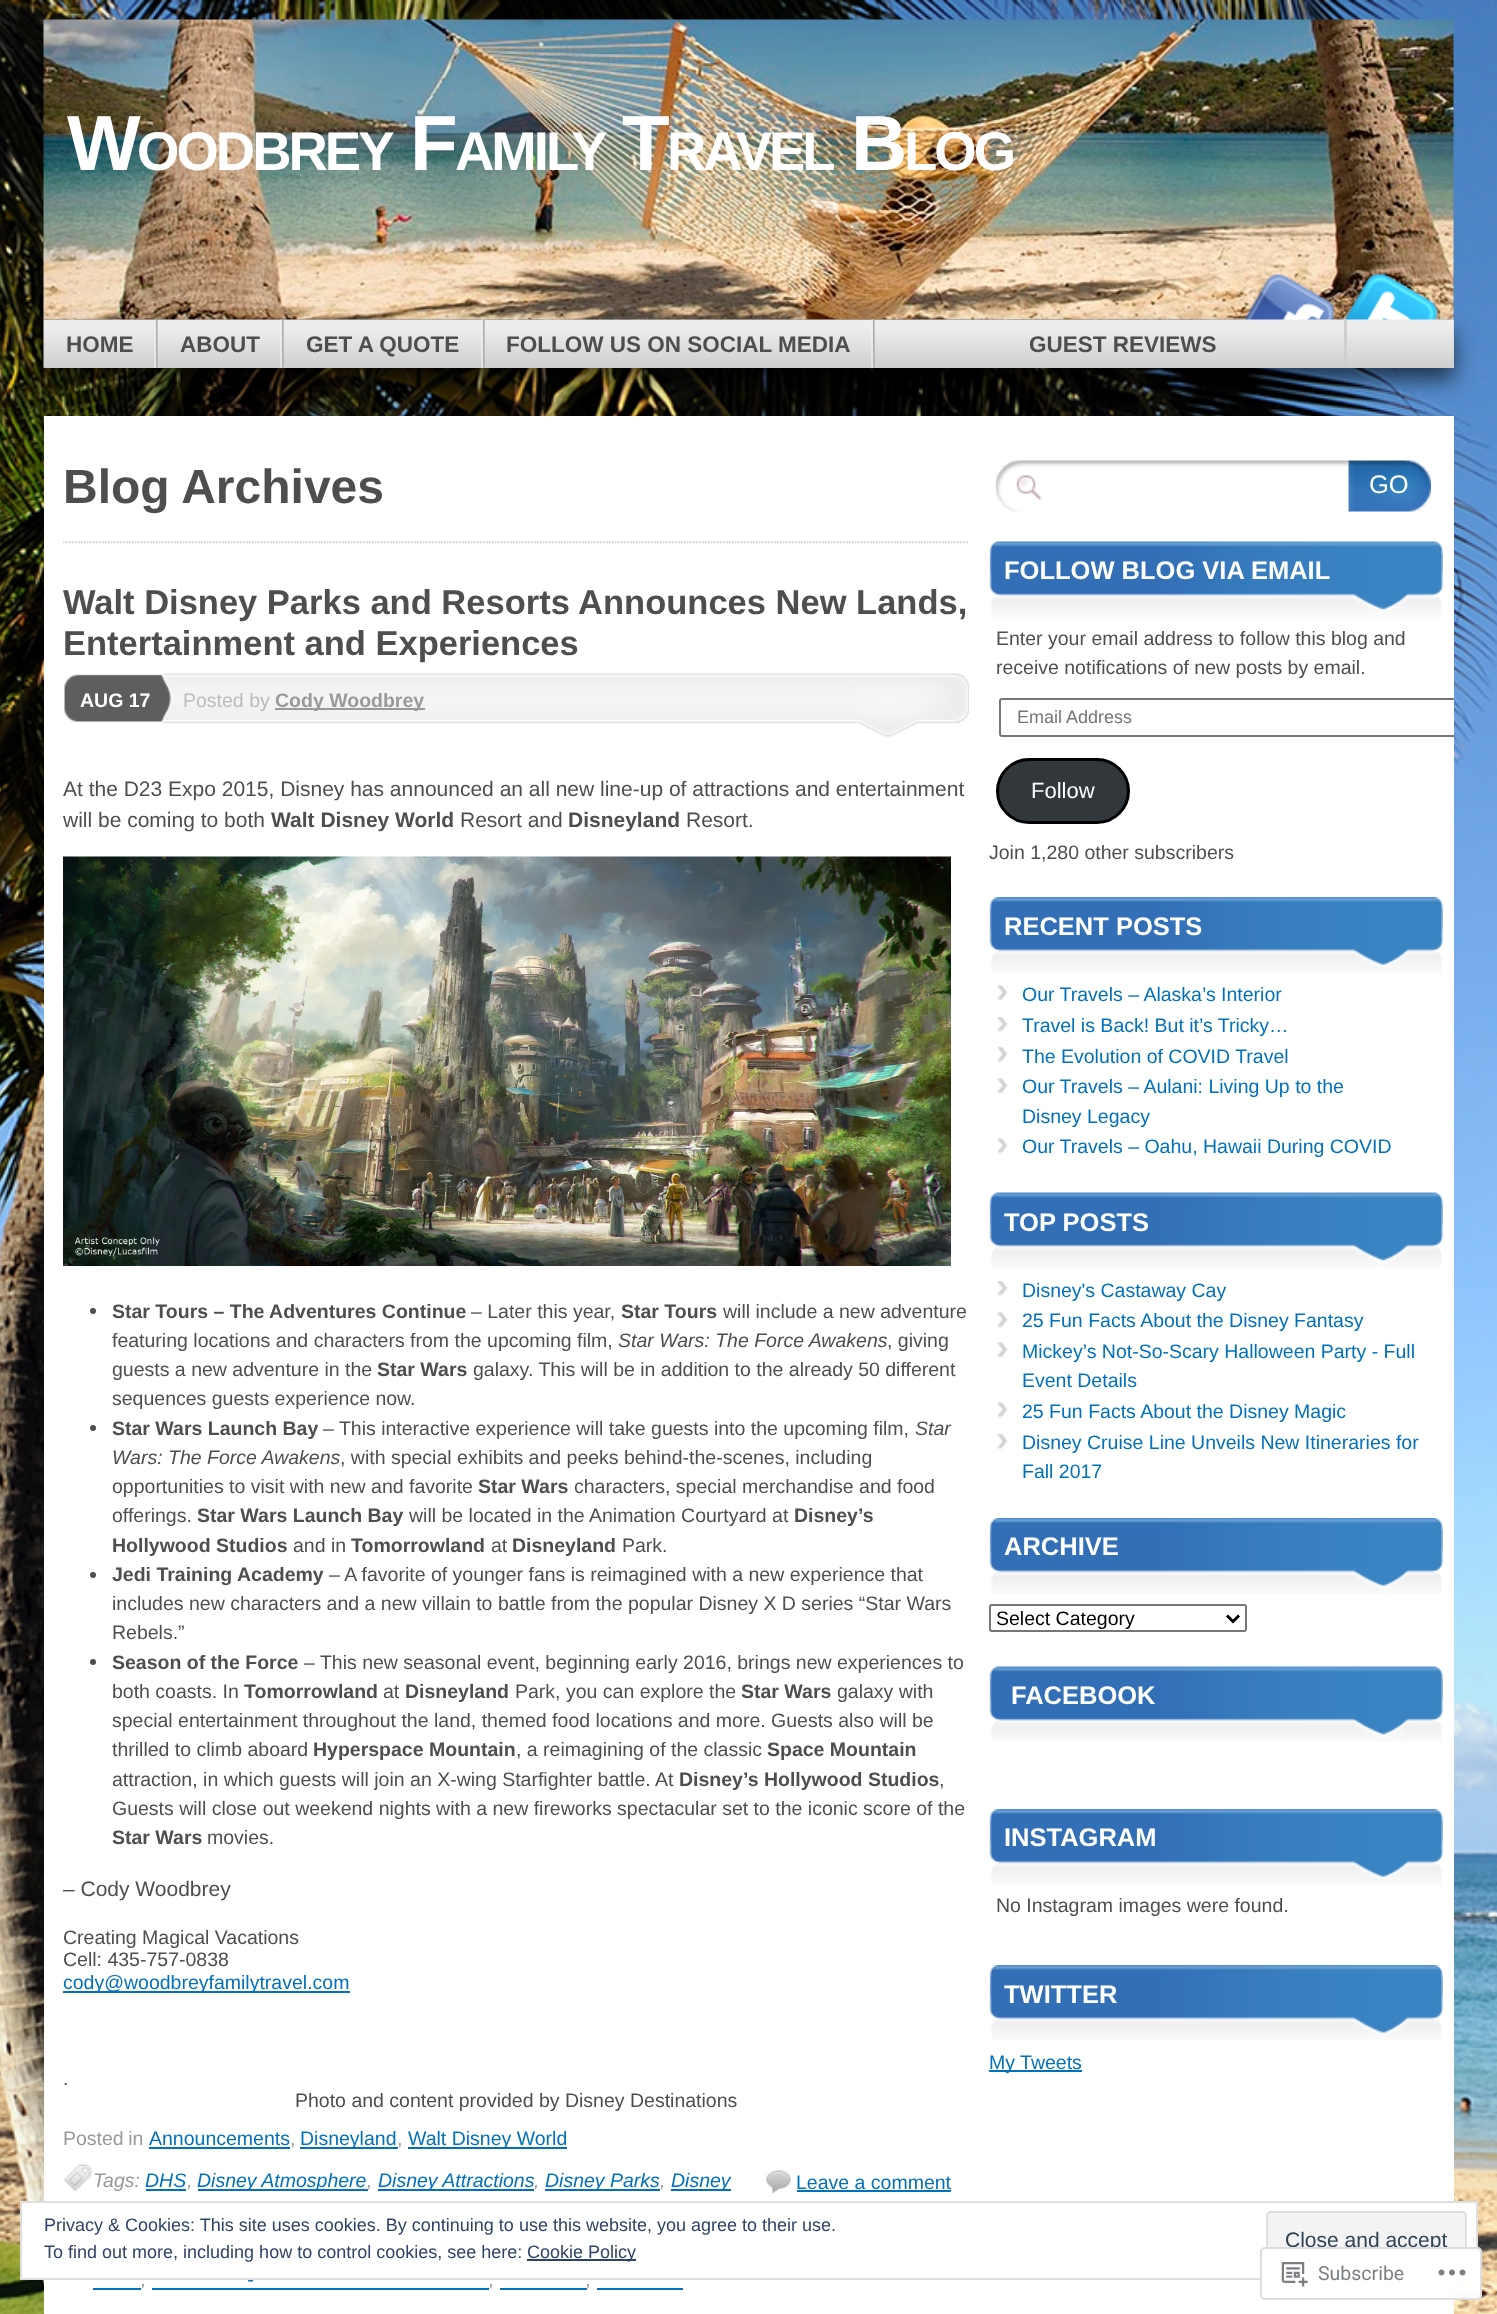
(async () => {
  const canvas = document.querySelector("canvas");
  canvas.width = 1497;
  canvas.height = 2314;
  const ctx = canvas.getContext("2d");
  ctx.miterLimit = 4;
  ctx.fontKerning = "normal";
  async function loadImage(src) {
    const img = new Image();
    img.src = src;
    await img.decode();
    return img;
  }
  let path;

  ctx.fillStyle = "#ffffff";
  ctx.fillRect(0, 0, 1497, 2314);
  ctx.drawImage(await loadImage("img/1.png"), 0, 0, 1497, 2314);
  ctx.drawImage(await loadImage("img/2.png"), 43, 19, 1411, 301);
  ctx.fillStyle = "rgba(0, 0, 0, 0.6)";
  ctx.filter = "blur(10.5px)";
  ctx.beginPath();
  ctx.rect(44, 332, 1410, 48);
  ctx.fill();
  ctx.filter = "none";
  ctx.fillStyle = "#d0d0d0";
  ctx.fillRect(44, 320, 1410, 48);
  ctx.drawImage(await loadImage("img/3.png"), 1243, 274, 91, 46);
  ctx.drawImage(await loadImage("img/4.png"), 1343, 274, 95, 46);
  ctx.drawImage(await loadImage("img/5.png"), 43, 319, 1411, 49);
  ctx.drawImage(await loadImage("img/6.png"), 154, 319, 4, 49);
  ctx.drawImage(await loadImage("img/7.png"), 280, 319, 4, 49);
  ctx.drawImage(await loadImage("img/8.png"), 481, 319, 4, 49);
  ctx.drawImage(await loadImage("img/9.png"), 871, 319, 4, 49);
  ctx.fillStyle = "#cfcfcf";
  ctx.fillRect(1344, 319, 3, 49);
  ctx.fillStyle = "#ffffff";
  ctx.fillRect(44, 416, 1410, 1898);
  ctx.drawImage(await loadImage("img/10.png"), 63, 541, 906, 3);
  ctx.drawImage(await loadImage("img/11.png"), 64, 674, 16, 48);
  ctx.drawImage(await loadImage("img/12.png"), 80, 673, 94, 51);
  ctx.drawImage(await loadImage("img/13.png"), 174, 673, 795, 64);
  ctx.fillStyle = "#999999";
  ctx.fillRect(275, 708, 150, 2);
  ctx.drawImage(await loadImage("img/14.png"), 63, 856, 888, 410);
  ctx.fillStyle = "#4e4e4e";
  ctx.beginPath();
  ctx.arc(93, 1311, 3, 0, Math.PI * 2);
  ctx.fill();
  ctx.beginPath();
  ctx.arc(93, 1428, 3, 0, Math.PI * 2);
  ctx.fill();
  ctx.beginPath();
  ctx.arc(93, 1575, 3, 0, Math.PI * 2);
  ctx.fill();
  ctx.beginPath();
  ctx.arc(93, 1662, 3, 0, Math.PI * 2);
  ctx.fill();
  for (const [x, y, w, h, color] of [
    [63, 1991, 287, 2, "#0071bb"],
    [149, 2147, 141, 2, "#0071bb"],
    [300, 2147, 98, 2, "#0071bb"],
    [408, 2147, 159, 2, "#0071bb"],
  ]) {
    ctx.fillStyle = color;
    ctx.fillRect(x, y, w, h);
  }
  ctx.drawImage(await loadImage("img/15.png"), 64, 2164, 28, 28);
  for (const [x, y, w, h, color] of [
    [146, 2189, 40, 2, "#0071bb"],
    [198, 2189, 170, 2, "#0071bb"],
    [378, 2189, 156, 2, "#0071bb"],
    [545, 2189, 115, 2, "#0071bb"],
    [671, 2189, 60, 2, "#0071bb"],
    [152, 2288, 337, 2, "#0071bb"],
    [93, 2288, 48, 2, "#0071bb"],
    [500, 2288, 87, 2, "#0071bb"],
    [597, 2288, 86, 2, "#0071bb"],
  ]) {
    ctx.fillStyle = color;
    ctx.fillRect(x, y, w, h);
  }
  ctx.drawImage(await loadImage("img/16.png"), 766, 2170, 25, 23);
  ctx.fillRect(797, 2190, 154, 2);
  ctx.drawImage(await loadImage("img/17.png"), 995, 460, 354, 52);
  ctx.drawImage(await loadImage("img/18.png"), 1348, 460, 83, 52);
  ctx.drawImage(await loadImage("img/19.png"), 989, 541, 454, 13);
  ctx.drawImage(await loadImage("img/20.png"), 989, 553, 454, 64);
  ctx.save();
  ctx.beginPath();
  ctx.rect(989, 438, 465, 1662);
  ctx.clip();
  ctx.beginPath();
  ctx.roundRect(1000, 699, 459, 37, 2);
  ctx.strokeStyle = "#767676";
  ctx.lineWidth = 2;
  ctx.stroke();
  ctx.restore();
  ctx.fillStyle = "#32373c";
  ctx.beginPath();
  ctx.roundRect(997.5, 759.5, 131, 63, 31.5);
  ctx.fill();
  ctx.strokeStyle = "#000000";
  ctx.lineWidth = 3;
  ctx.stroke();
  ctx.drawImage(await loadImage("img/21.png"), 989, 897, 454, 12);
  ctx.drawImage(await loadImage("img/22.png"), 989, 909, 454, 64);
  ctx.drawImage(await loadImage("img/23.png"), 997, 985, 11, 16);
  ctx.drawImage(await loadImage("img/24.png"), 997, 1016, 11, 17);
  ctx.drawImage(await loadImage("img/24.png"), 997, 1046, 11, 17);
  ctx.drawImage(await loadImage("img/23.png"), 997, 1078, 11, 16);
  ctx.drawImage(await loadImage("img/23.png"), 997, 1138, 11, 16);
  ctx.drawImage(await loadImage("img/19.png"), 989, 1192, 454, 13);
  ctx.drawImage(await loadImage("img/20.png"), 989, 1204, 454, 64);
  ctx.drawImage(await loadImage("img/24.png"), 997, 1280, 11, 17);
  ctx.drawImage(await loadImage("img/23.png"), 997, 1312, 11, 16);
  ctx.drawImage(await loadImage("img/23.png"), 997, 1342, 11, 16);
  ctx.drawImage(await loadImage("img/23.png"), 997, 1402, 11, 16);
  ctx.drawImage(await loadImage("img/24.png"), 997, 1433, 11, 17);
  ctx.drawImage(await loadImage("img/21.png"), 989, 1518, 454, 12);
  ctx.drawImage(await loadImage("img/22.png"), 989, 1530, 454, 64);
  ctx.beginPath();
  ctx.roundRect(990, 1605, 256, 26, 2);
  ctx.strokeStyle = "#767676";
  ctx.lineWidth = 2;
  ctx.stroke();
  path = new Path2D("M1227 1615.5L1233 1621.5L1239 1615.5");
  ctx.strokeStyle = "#000000";
  ctx.lineWidth = 3;
  ctx.stroke(path);
  ctx.drawImage(await loadImage("img/19.png"), 989, 1666, 454, 13);
  ctx.drawImage(await loadImage("img/20.png"), 989, 1678, 454, 64);
  ctx.drawImage(await loadImage("img/21.png"), 989, 1809, 454, 12);
  ctx.drawImage(await loadImage("img/22.png"), 989, 1821, 454, 64);
  ctx.drawImage(await loadImage("img/21.png"), 989, 1965, 454, 12);
  ctx.drawImage(await loadImage("img/22.png"), 989, 1977, 454, 64);
  ctx.fillStyle = "#0071bb";
  ctx.fillRect(989, 2070, 93, 2);
  ctx.fillStyle = "#ffffff";
  ctx.beginPath();
  ctx.rect(21, 2202, 1456, 77);
  ctx.fill();
  ctx.strokeStyle = "#dedede";
  ctx.lineWidth = 2;
  ctx.stroke();
  ctx.fillStyle = "#2e4467";
  ctx.fillRect(527, 2259, 109, 2);
  ctx.fillStyle = "#f3f3f3";
  ctx.beginPath();
  ctx.roundRect(1267, 2212, 199, 57, 4);
  ctx.fill();
  ctx.stroke();
  ctx.letterSpacing = "-3px";
  ctx.font = "bold 78px Liberation Sans";
  ctx.fillStyle = "#ffffff";
  ctx.fillText("W", 67, 170);
  ctx.font = "bold 54.5px Liberation Sans";
  ctx.fillText("OODBREY", 137, 170);
  ctx.font = "bold 78px Liberation Sans";
  ctx.fillText("F", 410, 170);
  ctx.font = "bold 54.5px Liberation Sans";
  ctx.fillText("AMILY", 455, 170);
  ctx.font = "bold 78px Liberation Sans";
  ctx.fillText("T", 622, 170);
  ctx.font = "bold 54.5px Liberation Sans";
  ctx.fillText("RAVEL", 667, 170);
  ctx.font = "bold 78px Liberation Sans";
  ctx.fillText("B", 851, 170);
  ctx.font = "bold 54.5px Liberation Sans";
  ctx.fillText("LOG", 904, 170);
  ctx.letterSpacing = "0px";
  ctx.font = "bold 22.5px Liberation Sans";
  ctx.fillStyle = "#4e4e4e";
  for (const [text, x, y] of [
    ["HOME", 66, 352],
    ["ABOUT", 180, 352],
    ["GET A QUOTE", 306, 352],
    ["FOLLOW US ON SOCIAL MEDIA", 506, 352],
    ["GUEST REVIEWS", 1029, 352],
  ]) {
    ctx.fillText(text, x, y);
  }
  ctx.font = "bold 48px Liberation Sans";
  ctx.fillText("Blog Archives", 63, 503);
  ctx.font = "bold 34.5px Liberation Sans";
  ctx.fillText("Walt Disney Parks and Resorts Announces New Lands,", 63, 614);
  ctx.fillText("Entertainment and Experiences", 63, 655);
  ctx.font = "bold 19.5px Liberation Sans";
  ctx.fillStyle = "#ffffff";
  ctx.fillText("AUG 17", 80, 707);
  ctx.font = "19.5px Liberation Sans";
  ctx.fillStyle = "#bbbbbb";
  ctx.fillText("Posted by", 183, 707);
  ctx.font = "bold 19.5px Liberation Sans";
  ctx.fillStyle = "#999999";
  ctx.fillText("Cody Woodbrey", 275, 707);
  ctx.font = "21px Liberation Sans";
  ctx.fillStyle = "#4e4e4e";
  ctx.fillText("At the D23 Expo 2015, Disney has announced an all new line-up of attractions and entertainment", 63, 796);
  ctx.fillText("will be coming to both", 63, 827);
  ctx.font = "bold 21px Liberation Sans";
  ctx.fillText("Walt Disney World", 271, 827);
  ctx.font = "21px Liberation Sans";
  ctx.fillText("Resort and", 460, 827);
  ctx.font = "bold 21px Liberation Sans";
  ctx.fillText("Disneyland", 568, 827);
  ctx.font = "21px Liberation Sans";
  ctx.fillText("Resort.", 686, 827);
  ctx.font = "bold 19.5px Liberation Sans";
  ctx.fillText("Star Tours – The Adventures Continue", 112, 1318);
  ctx.font = "19.5px Liberation Sans";
  ctx.fillText("– Later this year,", 471, 1318);
  ctx.font = "bold 19.5px Liberation Sans";
  ctx.fillText("Star Tours", 621, 1318);
  ctx.font = "19.5px Liberation Sans";
  ctx.fillText("will include a new adventure", 723, 1318);
  ctx.fillText("featuring locations and characters from the upcoming film,", 112, 1347);
  ctx.font = "italic 19.5px Liberation Sans";
  ctx.fillText("Star Wars: The Force Awakens", 618, 1347);
  ctx.font = "19.5px Liberation Sans";
  ctx.fillText(", giving", 887, 1347);
  ctx.fillText("guests a new adventure in the", 112, 1376);
  ctx.font = "bold 19.5px Liberation Sans";
  ctx.fillText("Star Wars", 377, 1376);
  ctx.font = "19.5px Liberation Sans";
  ctx.fillText("galaxy. This will be in addition to the already 50 different", 473, 1376);
  ctx.fillText("sequences guests experience now.", 112, 1405);
  ctx.font = "bold 19.5px Liberation Sans";
  ctx.fillText("Star Wars Launch Bay", 112, 1435);
  ctx.font = "19.5px Liberation Sans";
  ctx.fillText("– This interactive experience will take guests into the upcoming film,", 323, 1435);
  ctx.font = "italic 19.5px Liberation Sans";
  ctx.fillText("Star", 915, 1435);
  ctx.fillText("Wars: The Force Awakens", 112, 1464);
  ctx.font = "19.5px Liberation Sans";
  ctx.fillText(", with special exhibits and peeks behind-the-scenes, including", 340, 1464);
  ctx.fillText("opportunities to visit with new and favorite", 112, 1493);
  ctx.font = "bold 19.5px Liberation Sans";
  ctx.fillText("Star Wars", 478, 1493);
  ctx.font = "19.5px Liberation Sans";
  ctx.fillText("characters, special merchandise and food", 574, 1493);
  ctx.fillText("offerings.", 112, 1522);
  ctx.font = "bold 19.5px Liberation Sans";
  ctx.fillText("Star Wars Launch Bay", 197, 1522);
  ctx.font = "19.5px Liberation Sans";
  ctx.fillText("will be located in the Animation Courtyard at", 409, 1522);
  ctx.font = "bold 19.5px Liberation Sans";
  ctx.fillText("Disney’s", 794, 1522);
  ctx.fillText("Hollywood Studios", 112, 1552);
  ctx.font = "19.5px Liberation Sans";
  ctx.fillText("and in", 293, 1552);
  ctx.font = "bold 19.5px Liberation Sans";
  ctx.fillText("Tomorrowland", 351, 1552);
  ctx.font = "19.5px Liberation Sans";
  ctx.fillText("at", 491, 1552);
  ctx.font = "bold 19.5px Liberation Sans";
  ctx.fillText("Disneyland", 512, 1552);
  ctx.font = "19.5px Liberation Sans";
  ctx.fillText("Park.", 622, 1552);
  ctx.font = "bold 19.5px Liberation Sans";
  ctx.fillText("Jedi Training Academy", 112, 1581);
  ctx.font = "19.5px Liberation Sans";
  for (const [text, x, y] of [
    ["– A favorite of younger fans is reimagined with a new experience that", 329, 1581],
    ["includes new characters and a new villain to battle from the popular Disney X D series “Star Wars", 112, 1610],
    ["Rebels.”", 112, 1639],
  ]) {
    ctx.fillText(text, x, y);
  }
  ctx.font = "bold 19.5px Liberation Sans";
  ctx.fillText("Season of the Force", 112, 1669);
  ctx.font = "19.5px Liberation Sans";
  ctx.fillText("– This new seasonal event, beginning early 2016, brings new experiences to", 304, 1669);
  ctx.fillText("both coasts. In", 112, 1698);
  ctx.font = "bold 19.5px Liberation Sans";
  ctx.fillText("Tomorrowland", 244, 1698);
  ctx.font = "19.5px Liberation Sans";
  ctx.fillText("at", 383, 1698);
  ctx.font = "bold 19.5px Liberation Sans";
  ctx.fillText("Disneyland", 405, 1698);
  ctx.font = "19.5px Liberation Sans";
  ctx.fillText("Park, you can explore the", 515, 1698);
  ctx.font = "bold 19.5px Liberation Sans";
  ctx.fillText("Star Wars", 741, 1698);
  ctx.font = "19.5px Liberation Sans";
  for (const [text, x, y] of [
    ["galaxy with", 837, 1698],
    ["special entertainment throughout the land, themed food locations and more. Guests also will be", 112, 1727],
    ["thrilled to climb aboard", 112, 1756],
  ]) {
    ctx.fillText(text, x, y);
  }
  ctx.font = "bold 19.5px Liberation Sans";
  ctx.fillText("Hyperspace Mountain", 313, 1756);
  ctx.font = "19.5px Liberation Sans";
  ctx.fillText(", a reimagining of the classic", 516, 1756);
  ctx.font = "bold 19.5px Liberation Sans";
  ctx.fillText("Space Mountain", 767, 1756);
  ctx.font = "19.5px Liberation Sans";
  ctx.fillText("attraction, in which guests will join an X-wing Starfighter battle. At", 112, 1786);
  ctx.font = "bold 19.5px Liberation Sans";
  ctx.fillText("Disney’s Hollywood Studios", 679, 1786);
  ctx.font = "19.5px Liberation Sans";
  ctx.fillText(",", 939, 1786);
  ctx.fillText("Guests will close out weekend nights with a new fireworks spectacular set to the iconic score of the", 112, 1815);
  ctx.font = "bold 19.5px Liberation Sans";
  ctx.fillText("Star Wars", 112, 1844);
  ctx.font = "19.5px Liberation Sans";
  ctx.fillText("movies.", 207, 1844);
  ctx.font = "21px Liberation Sans";
  ctx.fillText("– Cody Woodbrey", 63, 1896);
  ctx.font = "19.5px Liberation Sans";
  ctx.fillText("Creating Magical Vacations", 63, 1944);
  ctx.fillText("Cell: 435-757-0838", 63, 1966);
  ctx.fillStyle = "#0071bb";
  ctx.fillText("cody@woodbreyfamilytravel.com", 63, 1989);
  ctx.fillStyle = "#4e4e4e";
  ctx.fillText(".", 63, 2085);
  ctx.fillText("Photo and content provided by Disney Destinations", 295, 2107);
  ctx.wordSpacing = "-1px";
  ctx.fillStyle = "#999999";
  ctx.fillText("Posted in", 63, 2145);
  ctx.wordSpacing = "0px";
  ctx.fillStyle = "#0071bb";
  ctx.fillText("Announcements", 149, 2145);
  ctx.fillStyle = "#999999";
  ctx.fillText(",", 290, 2145);
  ctx.fillStyle = "#0071bb";
  ctx.fillText("Disneyland", 300, 2145);
  ctx.fillStyle = "#999999";
  ctx.fillText(",", 397, 2145);
  ctx.fillStyle = "#0071bb";
  ctx.fillText("Walt Disney World", 408, 2145);
  ctx.font = "italic 19.5px Liberation Sans";
  ctx.fillStyle = "#999999";
  ctx.fillText("Tags:", 93, 2187);
  ctx.fillStyle = "#0071bb";
  ctx.fillText("DHS", 145, 2187);
  ctx.fillStyle = "#999999";
  ctx.fillText(",", 187, 2187);
  ctx.fillStyle = "#0071bb";
  ctx.fillText("Disney Atmosphere", 197, 2187);
  ctx.fillStyle = "#999999";
  ctx.fillText(",", 367, 2187);
  ctx.fillStyle = "#0071bb";
  ctx.fillText("Disney Attractions", 378, 2187);
  ctx.fillStyle = "#999999";
  ctx.fillText(",", 534, 2187);
  ctx.fillStyle = "#0071bb";
  ctx.fillText("Disney Parks", 545, 2187);
  ctx.fillStyle = "#999999";
  ctx.fillText(",", 660, 2187);
  ctx.fillStyle = "#0071bb";
  ctx.fillText("Disney", 671, 2187);
  ctx.fillText("-", 247, 2286);
  ctx.fillStyle = "#999999";
  for (const [text, x, y] of [
    [",", 141, 2286],
    [",", 489, 2286],
    [",", 586, 2286],
  ]) {
    ctx.fillText(text, x, y);
  }
  ctx.font = "19.5px Liberation Sans";
  ctx.fillStyle = "#0071bb";
  ctx.fillText("Leave a comment", 796, 2189);
  ctx.font = "25.5px Liberation Sans";
  ctx.fillStyle = "#ffffff";
  ctx.fillText("GO", 1369, 493);
  ctx.font = "bold 25.5px Liberation Sans";
  ctx.fillText("FOLLOW BLOG VIA EMAIL", 1004, 579);
  ctx.font = "19.5px Liberation Sans";
  ctx.fillStyle = "#4e4e4e";
  ctx.fillText("Enter your email address to follow this blog and", 996, 645);
  ctx.fillText("receive notifications of new posts by email.", 996, 674);
  ctx.font = "18px Liberation Sans";
  ctx.fillStyle = "#757575";
  ctx.fillText("Email Address", 1017, 723);
  ctx.font = "22px Liberation Sans";
  ctx.fillStyle = "#ffffff";
  ctx.fillText("Follow", 1031, 798);
  ctx.font = "19.5px Liberation Sans";
  ctx.fillStyle = "#4e4e4e";
  ctx.fillText("Join 1,280 other subscribers", 989, 859);
  ctx.font = "bold 25.5px Liberation Sans";
  ctx.fillStyle = "#ffffff";
  ctx.fillText("RECENT POSTS", 1004, 935);
  ctx.font = "19.5px Liberation Sans";
  ctx.fillStyle = "#0071bb";
  for (const [text, x, y] of [
    ["Our Travels – Alaska’s Interior", 1022, 1001],
    ["Travel is Back! But it’s Tricky…", 1022, 1032],
    ["The Evolution of COVID Travel", 1022, 1063],
    ["Our Travels – Aulani: Living Up to the", 1022, 1093],
    ["Disney Legacy", 1022, 1123],
    ["Our Travels – Oahu, Hawaii During COVID", 1022, 1153],
  ]) {
    ctx.fillText(text, x, y);
  }
  ctx.font = "bold 25.5px Liberation Sans";
  ctx.fillStyle = "#ffffff";
  ctx.fillText("TOP POSTS", 1004, 1231);
  ctx.font = "19.5px Liberation Sans";
  ctx.fillStyle = "#0071bb";
  for (const [text, x, y] of [
    ["Disney's Castaway Cay", 1022, 1297],
    ["25 Fun Facts About the Disney Fantasy", 1022, 1327],
    ["Mickey’s Not-So-Scary Halloween Party - Full", 1022, 1358],
    ["Event Details", 1022, 1387],
    ["25 Fun Facts About the Disney Magic", 1022, 1418],
    ["Disney Cruise Line Unveils New Itineraries for", 1022, 1449],
    ["Fall 2017", 1022, 1478],
  ]) {
    ctx.fillText(text, x, y);
  }
  ctx.font = "bold 25.5px Liberation Sans";
  ctx.fillStyle = "#ffffff";
  ctx.fillText("ARCHIVE", 1004, 1555);
  ctx.font = "19.5px Liberation Sans";
  ctx.fillStyle = "#000000";
  ctx.fillText("Select Category", 996, 1625);
  ctx.font = "bold 25.5px Liberation Sans";
  ctx.fillStyle = "#ffffff";
  ctx.fillText("FACEBOOK", 1011, 1704);
  ctx.fillText("INSTAGRAM", 1004, 1846);
  ctx.font = "19.5px Liberation Sans";
  ctx.fillStyle = "#4e4e4e";
  ctx.fillText("No Instagram images were found.", 996, 1912);
  ctx.font = "bold 25.5px Liberation Sans";
  ctx.fillStyle = "#ffffff";
  ctx.fillText("TWITTER", 1004, 2003);
  ctx.font = "19.5px Liberation Sans";
  ctx.fillStyle = "#0071bb";
  ctx.fillText("My Tweets", 989, 2069);
  ctx.font = "18px Liberation Sans";
  ctx.fillStyle = "#2e4467";
  for (const [text, x, y] of [
    ["Privacy & Cookies: This site uses cookies. By continuing to use this website, you agree to their use.", 44, 2231],
    ["To find out more, including how to control cookies, see here:", 44, 2258],
    ["Cookie Policy", 527, 2258],
  ]) {
    ctx.fillText(text, x, y);
  }
  ctx.font = "21px Liberation Sans";
  ctx.fillStyle = "#2e4453";
  ctx.fillText("Close and accept", 1285, 2247);
  ctx.fillStyle = "rgba(255, 255, 255, 0.98)";
  ctx.beginPath();
  ctx.roundRect(1260, 2247, 222, 53, 5);
  ctx.fill();
  ctx.beginPath();
  ctx.roundRect(1261, 2248, 220, 51, 4);
  ctx.strokeStyle = "rgba(220, 220, 222, 0.98)";
  ctx.stroke();
  ctx.drawImage(await loadImage("img/25.png"), 1281, 2262, 27, 25);
  ctx.font = "19.5px Roboto";
  ctx.fillStyle = "#7b7f84";
  ctx.fillText("Subscribe", 1318, 2280);
  ctx.drawImage(await loadImage("img/26.png"), 1438, 2269, 28, 7);
})();
